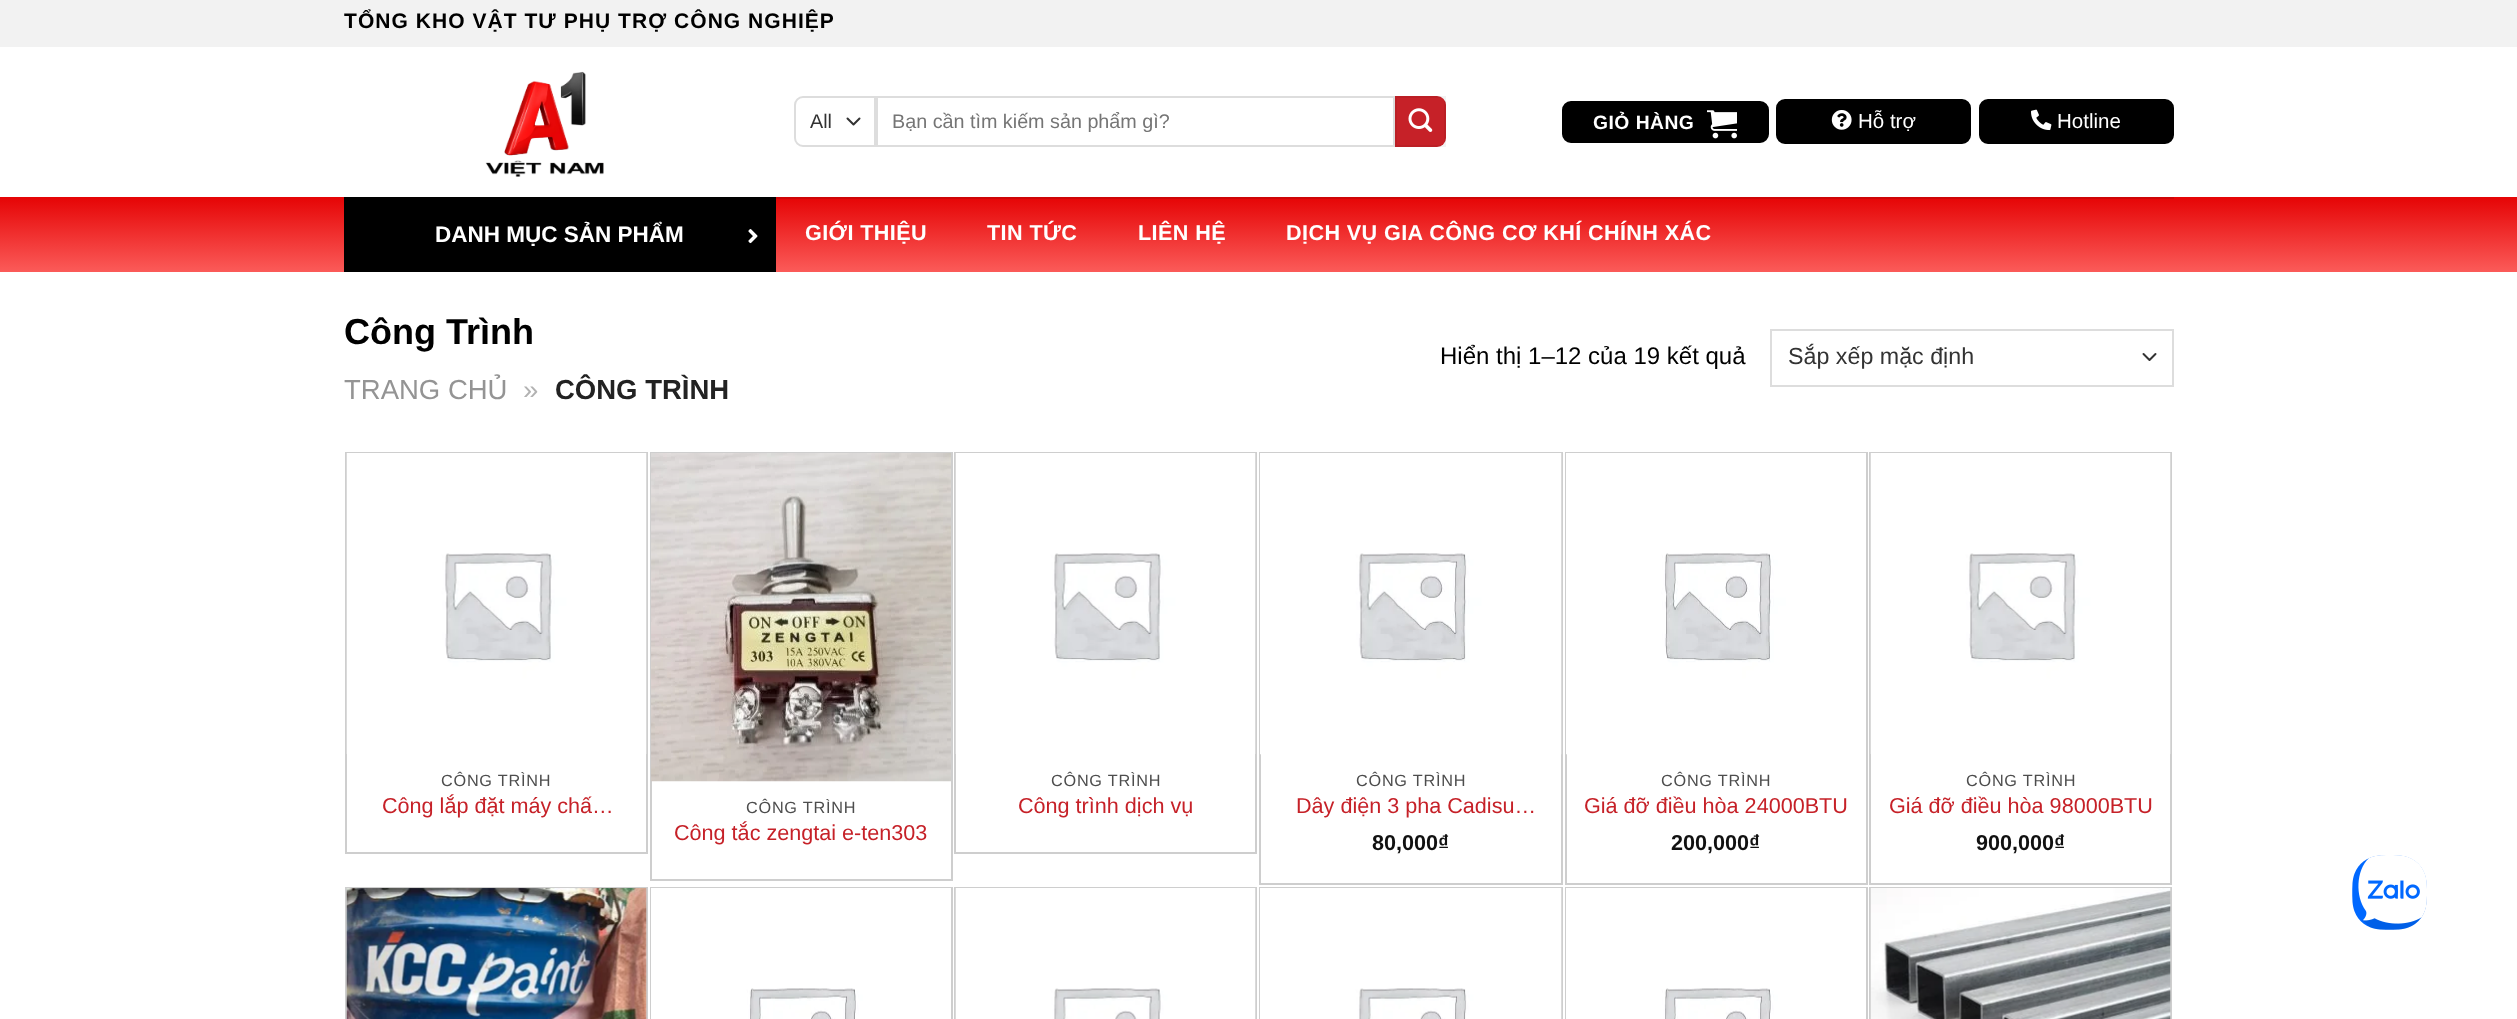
(async () => {
  const canvas = document.querySelector("canvas");
  canvas.width = 2517;
  canvas.height = 1019;
  const ctx = canvas.getContext("2d");
  ctx.miterLimit = 4;
  ctx.fontKerning = "normal";
  async function loadImage(src) {
    const img = new Image();
    img.src = src;
    await img.decode();
    return img;
  }
  let gradient, path;

  ctx.fillStyle = "#ffffff";
  ctx.fillRect(0, 0, 2517, 1019);
  ctx.fillStyle = "#f2f2f2";
  ctx.fillRect(0, 0, 2517, 47);
  ctx.drawImage(await loadImage("img/1.png"), 485, 71, 119, 106);
  path = new Path2D("M847.5 118.5L853.5 124.5L859.5 118.5");
  ctx.strokeStyle = "#333333";
  ctx.lineWidth = 2;
  ctx.lineCap = "round";
  ctx.lineJoin = "round";
  ctx.stroke(path);
  ctx.beginPath();
  ctx.roundRect(795, 97, 80, 49, [8, 0, 0, 8]);
  ctx.strokeStyle = "#dddddd";
  ctx.lineJoin = "miter";
  ctx.stroke();
  ctx.strokeRect(877, 97, 517, 49);
  ctx.fillStyle = "#c62128";
  ctx.beginPath();
  ctx.roundRect(1395, 96, 51, 51, [0, 9, 9, 0]);
  ctx.fill();
  ctx.strokeStyle = "rgba(0, 0, 0, 0.05)";
  ctx.strokeRect(1396, 97, 49, 49);
  ctx.drawImage(await loadImage("img/2.png"), 1408, 108, 25, 24);
  ctx.fillStyle = "#000000";
  ctx.beginPath();
  ctx.roundRect(1563, 102, 205, 40, 8);
  ctx.fill();
  ctx.strokeStyle = "#000000";
  ctx.stroke();
  ctx.drawImage(await loadImage("img/3.png"), 1707, 110, 30, 29);
  ctx.beginPath();
  ctx.roundRect(1777, 100, 193, 43, 8);
  ctx.fill();
  ctx.stroke();
  ctx.drawImage(await loadImage("img/4.png"), 1831, 110, 21, 20);
  ctx.beginPath();
  ctx.roundRect(1980, 100, 193, 43, 8);
  ctx.fill();
  ctx.stroke();
  ctx.drawImage(await loadImage("img/5.png"), 2031, 109, 21, 22);
  gradient = ctx.createLinearGradient(1259, 196, 1259, 272);
  gradient.addColorStop(0, "#e50304");
  gradient.addColorStop(1, "#fb5b59");
  gradient.addColorStop(1, "#00d4ff");
  ctx.fillStyle = gradient;
  ctx.fillRect(0, 197, 2517, 75);
  gradient = ctx.createLinearGradient(1259, 196, 1259, 272);
  gradient.addColorStop(0, "#ce0304");
  gradient.addColorStop(1, "#e25250");
  gradient.addColorStop(1, "#00bfe6");
  ctx.fillStyle = gradient;
  ctx.fillRect(776, 197, 1398, 2);
  ctx.fillStyle = "#000000";
  ctx.fillRect(344, 197, 432, 75);
  ctx.drawImage(await loadImage("img/6.png"), 748, 229, 10, 15);
  path = new Path2D("M2143.5 354L2149.5 360L2155.5 354");
  ctx.strokeStyle = "#333333";
  ctx.lineJoin = "round";
  ctx.stroke(path);
  ctx.strokeStyle = "#dddddd";
  ctx.lineJoin = "miter";
  ctx.strokeRect(1771, 330, 402, 56);
  ctx.strokeStyle = "#cecece";
  ctx.strokeRect(346, 453, 301, 400);
  ctx.drawImage(await loadImage("img/7.png"), 346, 453, 301, 301);
  ctx.strokeRect(651, 453, 301, 427);
  ctx.drawImage(await loadImage("img/8.png"), 651, 453, 300, 329);
  ctx.strokeRect(955, 453, 301, 400);
  ctx.drawImage(await loadImage("img/7.png"), 955, 453, 301, 301);
  ctx.strokeRect(1260, 453, 302, 431);
  ctx.drawImage(await loadImage("img/9.png"), 1260, 453, 302, 302);
  ctx.strokeRect(1566, 453, 301, 431);
  ctx.drawImage(await loadImage("img/10.png"), 1566, 453, 300, 302);
  ctx.strokeRect(1870, 453, 301, 431);
  ctx.drawImage(await loadImage("img/7.png"), 1870, 453, 301, 301);
  ctx.strokeRect(346, 888, 301, 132);
  ctx.drawImage(await loadImage("img/11.png"), 346, 888, 301, 131);
  ctx.strokeRect(651, 888, 301, 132);
  ctx.drawImage(await loadImage("img/12.png"), 651, 888, 300, 131);
  ctx.strokeRect(955, 888, 301, 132);
  ctx.drawImage(await loadImage("img/13.png"), 955, 888, 301, 131);
  ctx.strokeRect(1260, 888, 302, 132);
  ctx.drawImage(await loadImage("img/14.png"), 1260, 888, 302, 131);
  ctx.strokeRect(1566, 888, 301, 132);
  ctx.drawImage(await loadImage("img/12.png"), 1566, 888, 300, 131);
  ctx.strokeRect(1870, 888, 301, 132);
  ctx.drawImage(await loadImage("img/15.png"), 1870, 888, 301, 131);
  ctx.drawImage(await loadImage("img/16.png"), 2352, 855, 75, 75);
  ctx.letterSpacing = "1.05px";
  ctx.font = "bold 21px Liberation Sans";
  ctx.fillText("TỔNG KHO VẬT TƯ PHỤ TRỢ CÔNG NGHIỆP", 344, 28);
  ctx.letterSpacing = "0px";
  ctx.font = "19.75px Liberation Sans";
  ctx.fillStyle = "#333333";
  ctx.fillText("All", 810, 128);
  ctx.fillStyle = "#757575";
  ctx.fillText("Bạn cần tìm kiếm sản phẩm gì?", 892, 128);
  ctx.letterSpacing = "0.5px";
  ctx.font = "bold 19.25px Liberation Sans";
  ctx.fillStyle = "#ffffff";
  ctx.fillText("GIỎ HÀNG", 1593, 129);
  ctx.letterSpacing = "0px";
  ctx.font = "20.5px Liberation Sans";
  ctx.fillText("Hỗ trợ", 1858, 128);
  ctx.fillText("Hotline", 2057, 128);
  ctx.font = "bold 22.5px Liberation Sans";
  ctx.fillText("DANH MỤC SẢN PHẨM", 435, 242);
  ctx.letterSpacing = "0.4px";
  ctx.font = "bold 21.6px Liberation Sans";
  for (const [text, x, y] of [
    ["GIỚI THIỆU", 805, 240],
    ["TIN TỨC", 987, 240],
    ["LIÊN HỆ", 1138, 240],
    ["DỊCH VỤ GIA CÔNG CƠ KHÍ CHÍNH XÁC", 1286, 240],
  ]) {
    ctx.fillText(text, x, y);
  }
  ctx.letterSpacing = "0px";
  ctx.font = "bold 36px Liberation Sans";
  ctx.fillStyle = "#000000";
  ctx.fillText("Công Trình", 344, 344);
  ctx.font = "27.5px Liberation Sans";
  ctx.fillStyle = "#949494";
  ctx.fillText("TRANG CHỦ", 344, 399);
  ctx.fillStyle = "#b2b2b2";
  ctx.fillText("»", 523, 399);
  ctx.font = "bold 27.5px Liberation Sans";
  ctx.fillStyle = "#222222";
  ctx.fillText("CÔNG TRÌNH", 555, 399);
  ctx.font = "24px Liberation Sans";
  ctx.fillStyle = "#000000";
  ctx.fillText("Hiển thị 1–12 của 19 kết quả", 1440, 364);
  ctx.font = "23.25px Liberation Sans";
  ctx.fillStyle = "#333333";
  ctx.fillText("Sắp xếp mặc định", 1788, 364);
  ctx.letterSpacing = "0.75px";
  ctx.font = "16.25px Liberation Sans";
  ctx.fillStyle = "#4d4d4d";
  ctx.fillText("CÔNG TRÌNH", 441, 786);
  ctx.letterSpacing = "0px";
  ctx.font = "21.6px Liberation Sans";
  ctx.fillStyle = "#c62128";
  ctx.fillText("Công lắp đặt máy chấ…", 382, 813);
  ctx.letterSpacing = "0.75px";
  ctx.font = "16.25px Liberation Sans";
  ctx.fillStyle = "#4d4d4d";
  ctx.fillText("CÔNG TRÌNH", 746, 813);
  ctx.letterSpacing = "0px";
  ctx.font = "21.6px Liberation Sans";
  ctx.fillStyle = "#c62128";
  ctx.fillText("Công tắc zengtai e-ten303", 674, 840);
  ctx.letterSpacing = "0.75px";
  ctx.font = "16.25px Liberation Sans";
  ctx.fillStyle = "#4d4d4d";
  ctx.fillText("CÔNG TRÌNH", 1051, 786);
  ctx.letterSpacing = "0px";
  ctx.font = "21.6px Liberation Sans";
  ctx.fillStyle = "#c62128";
  ctx.fillText("Công trình dịch vụ", 1018, 813);
  ctx.letterSpacing = "0.75px";
  ctx.font = "16.25px Liberation Sans";
  ctx.fillStyle = "#4d4d4d";
  ctx.fillText("CÔNG TRÌNH", 1356, 786);
  ctx.letterSpacing = "0px";
  ctx.font = "21.6px Liberation Sans";
  ctx.fillStyle = "#c62128";
  ctx.fillText("Dây điện 3 pha Cadisu…", 1296, 813);
  ctx.font = "bold 21.6px Liberation Sans";
  ctx.fillStyle = "#111111";
  ctx.fillText("80,000₫", 1372, 850);
  ctx.letterSpacing = "0.75px";
  ctx.font = "16.25px Liberation Sans";
  ctx.fillStyle = "#4d4d4d";
  ctx.fillText("CÔNG TRÌNH", 1661, 786);
  ctx.letterSpacing = "0px";
  ctx.font = "21.6px Liberation Sans";
  ctx.fillStyle = "#c62128";
  ctx.fillText("Giá đỡ điều hòa 24000BTU", 1584, 813);
  ctx.font = "bold 21.6px Liberation Sans";
  ctx.fillStyle = "#111111";
  ctx.fillText("200,000₫", 1671, 850);
  ctx.letterSpacing = "0.75px";
  ctx.font = "16.25px Liberation Sans";
  ctx.fillStyle = "#4d4d4d";
  ctx.fillText("CÔNG TRÌNH", 1966, 786);
  ctx.letterSpacing = "0px";
  ctx.font = "21.6px Liberation Sans";
  ctx.fillStyle = "#c62128";
  ctx.fillText("Giá đỡ điều hòa 98000BTU", 1889, 813);
  ctx.font = "bold 21.6px Liberation Sans";
  ctx.fillStyle = "#111111";
  ctx.fillText("900,000₫", 1976, 850);
})();
